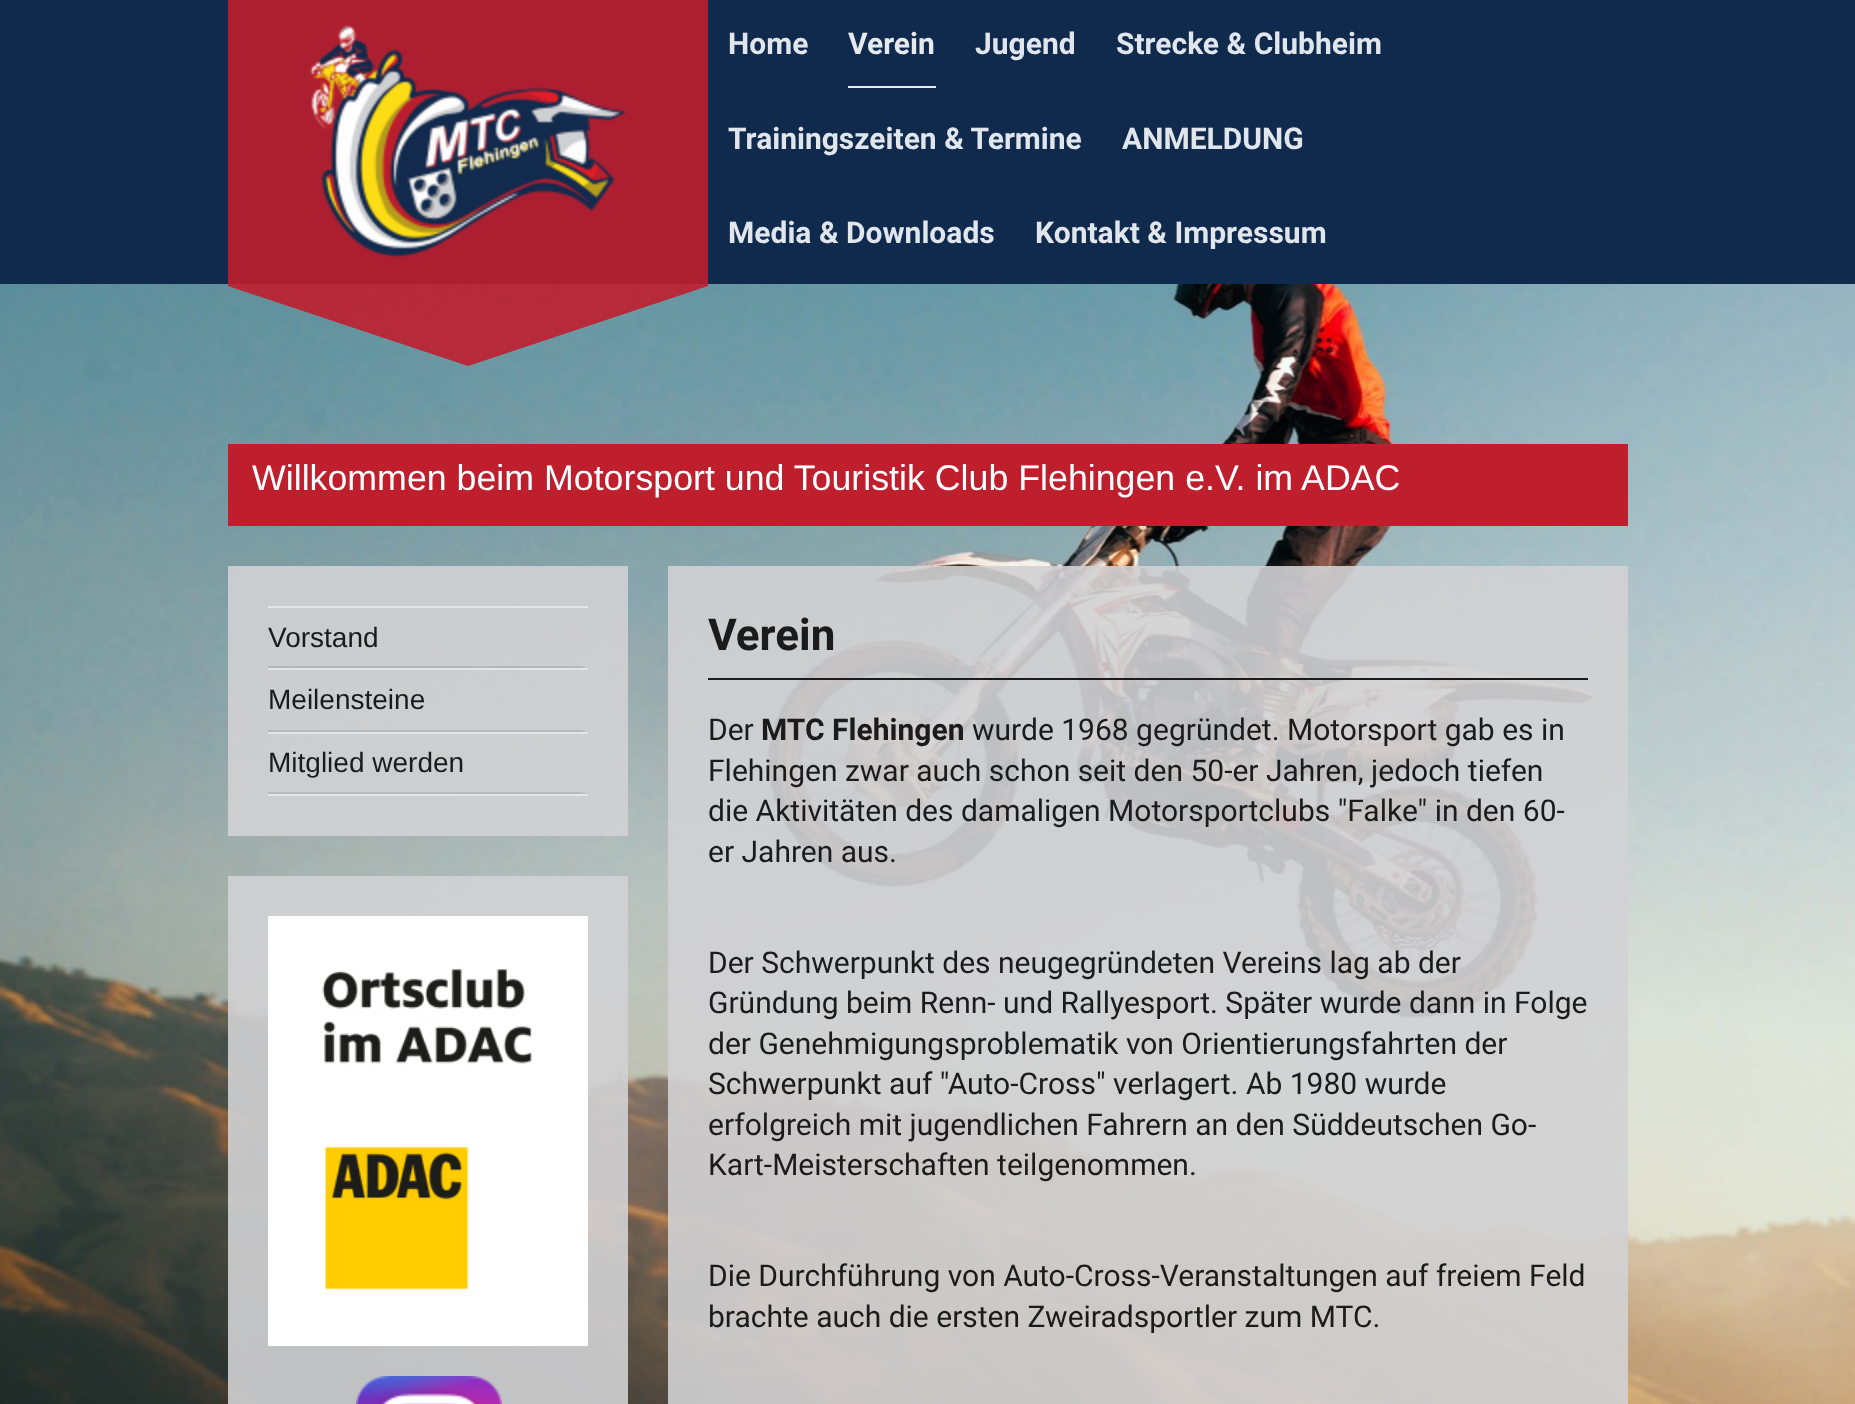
(async () => {
  const canvas = document.querySelector("canvas");
  canvas.width = 1855;
  canvas.height = 1404;
  const ctx = canvas.getContext("2d");
  ctx.miterLimit = 4;
  ctx.fontKerning = "normal";
  async function loadImage(src) {
    const img = new Image();
    img.src = src;
    await img.decode();
    return img;
  }
  let path;

  ctx.fillStyle = "#ffffff";
  ctx.fillRect(0, 0, 1855, 1404);
  ctx.drawImage(await loadImage("img/1.png"), 0, 284, 1855, 1120);
  ctx.fillStyle = "#102a4e";
  ctx.fillRect(0, 0, 1855, 284);
  ctx.fillStyle = "rgba(191, 30, 45, 0.9)";
  ctx.fillRect(228, 0, 480, 286);
  ctx.drawImage(await loadImage("img/2.png"), 309, 25, 318, 232);
  path = new Path2D("M228 286H708L468 366Z");
  ctx.fill(path);
  for (const [x, y, w, h, color] of [
    [848, 86, 88, 2, "#e7eaed"],
    [228, 444, 1400, 82, "#bf1e2d"],
    [228, 566, 400, 270, "rgba(209, 210, 212, 0.9)"],
    [268, 606, 320, 2, "#e1e6ec"],
    [268, 668, 320, 2, "#e1e6ec"],
  ]) {
    ctx.fillStyle = color;
    ctx.fillRect(x, y, w, h);
  }
  ctx.fillStyle = "#b6b9bb";
  path = new Path2D("M588 668H268V666H580Z");
  ctx.fill(path);
  ctx.fillStyle = "#e1e6ec";
  ctx.fillRect(268, 732, 320, 2);
  ctx.fillStyle = "#b7babc";
  path = new Path2D("M588 732H268V730H580Z");
  ctx.fill(path);
  ctx.fillStyle = "#e1e6ec";
  ctx.fillRect(268, 794, 320, 2);
  ctx.fillStyle = "#b8babc";
  path = new Path2D("M588 794H268V792H580Z");
  ctx.fill(path);
  ctx.fillStyle = "rgba(209, 210, 212, 0.9)";
  ctx.fillRect(228, 876, 400, 528);
  ctx.drawImage(await loadImage("img/3.png"), 268, 916, 320, 430);
  ctx.drawImage(await loadImage("img/4.png"), 356, 1376, 146, 28);
  ctx.fillRect(668, 566, 960, 838);
  ctx.fillStyle = "#1b1b1b";
  ctx.fillRect(708, 678, 880, 2);
  ctx.font = "bold 30px Roboto";
  ctx.fillStyle = "#e1e6ec";
  ctx.fillText("Home", 728, 54);
  ctx.fillStyle = "#e7eaed";
  ctx.fillText("Verein", 848, 54);
  ctx.fillStyle = "#e1e6ec";
  for (const [text, x, y] of [
    ["Jugend", 975, 54],
    ["Strecke & Clubheim", 1116, 54],
    ["Trainingszeiten & Termine", 728, 149],
    ["ANMELDUNG", 1122, 149],
    ["Media & Downloads", 728, 243],
    ["Kontakt & Impressum", 1035, 243],
  ]) {
    ctx.fillText(text, x, y);
  }
  ctx.font = "35.75px Liberation Sans";
  ctx.fillStyle = "#ffffff";
  ctx.fillText("Willkommen beim Motorsport und Touristik Club Flehingen e.V. im ADAC", 252, 490);
  ctx.font = "28px Liberation Sans";
  ctx.fillStyle = "#1b1b1b";
  for (const [text, x, y] of [
    ["Vorstand", 268, 647],
    ["Meilensteine", 268, 709],
    ["Mitglied werden", 268, 772],
  ]) {
    ctx.fillText(text, x, y);
  }
  ctx.font = "bold 44px Roboto";
  ctx.fillText("Verein", 708, 650);
  ctx.font = "30px Roboto";
  ctx.fillText("Der", 708, 740);
  ctx.font = "bold 30px Roboto";
  ctx.fillText("MTC Flehingen", 761, 740);
  ctx.font = "30px Roboto";
  for (const [text, x, y] of [
    ["wurde 1968 gegründet. Motorsport gab es in", 972, 740],
    ["Flehingen zwar auch schon seit den 50-er Jahren, jedoch tiefen", 708, 781],
    ["die Aktivitäten des damaligen Motorsportclubs \"Falke\" in den 60-", 708, 821],
    ["er Jahren aus.", 708, 862],
    ["Der Schwerpunkt des neugegründeten Vereins lag ab der", 708, 973],
    ["Gründung beim Renn- und Rallyesport. Später wurde dann in Folge", 708, 1013],
    ["der Genehmigungsproblematik von Orientierungsfahrten der", 708, 1054],
    ["Schwerpunkt auf \"Auto-Cross\" verlagert. Ab 1980 wurde", 708, 1094],
    ["erfolgreich mit jugendlichen Fahrern an den Süddeutschen Go-", 708, 1135],
    ["Kart-Meisterschaften teilgenommen.", 708, 1175],
    ["Die Durchführung von Auto-Cross-Veranstaltungen auf freiem Feld", 708, 1286],
    ["brachte auch die ersten Zweiradsportler zum MTC.", 708, 1327],
  ]) {
    ctx.fillText(text, x, y);
  }
})();
